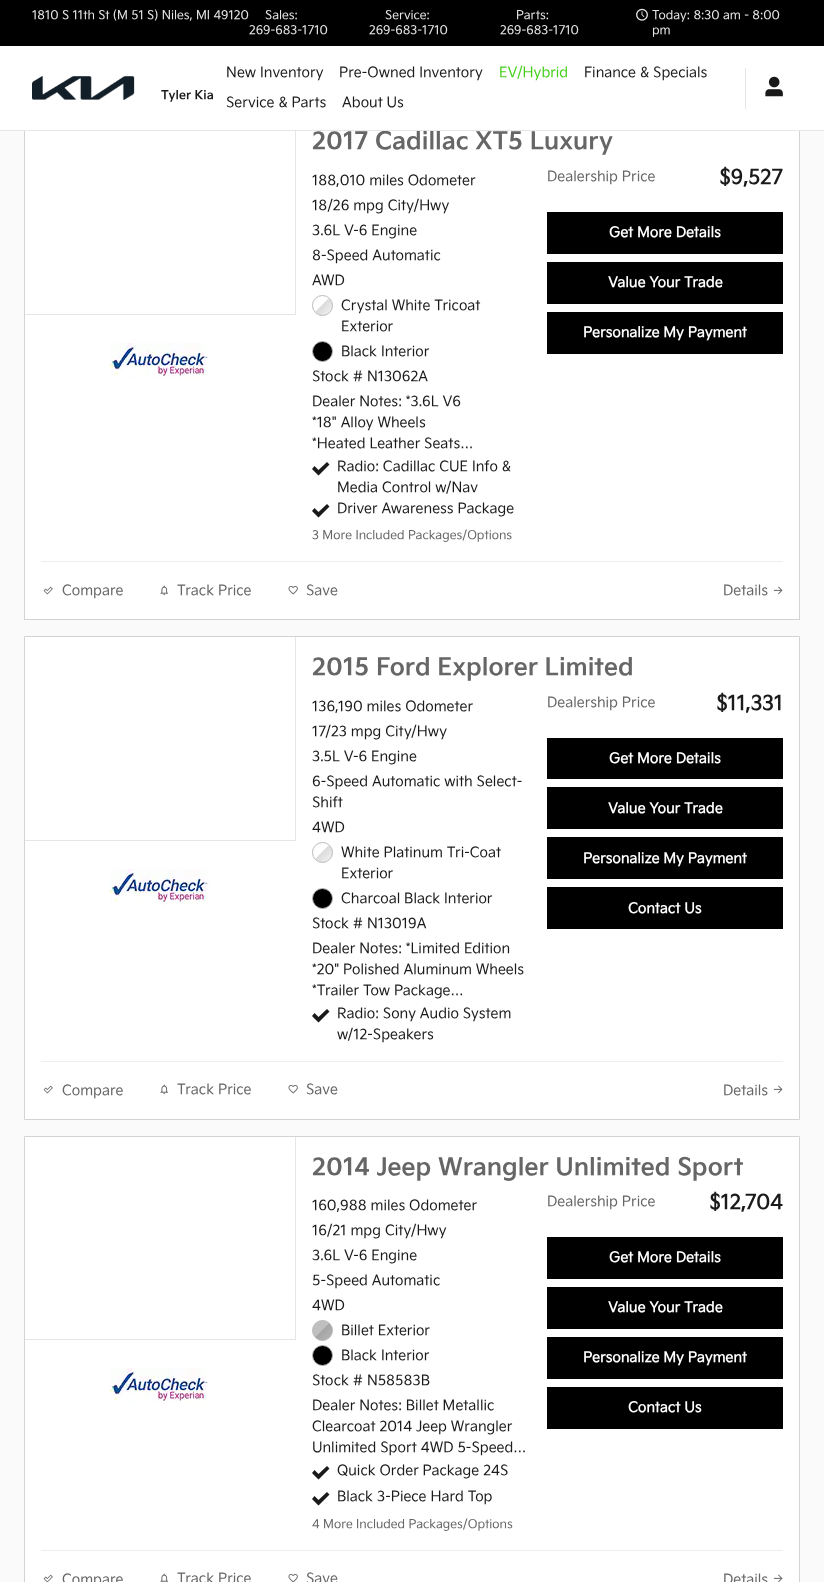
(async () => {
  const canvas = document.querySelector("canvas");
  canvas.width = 824;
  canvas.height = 1582;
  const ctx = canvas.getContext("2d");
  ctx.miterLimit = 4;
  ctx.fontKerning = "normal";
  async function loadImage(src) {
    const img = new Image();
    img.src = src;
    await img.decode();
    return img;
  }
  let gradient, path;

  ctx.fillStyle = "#fafafa";
  ctx.fillRect(0, 0, 824, 1582);
  ctx.fillStyle = "#ffffff";
  ctx.fillRect(25, 131, 774, 488);
  ctx.strokeStyle = "#d3d3d3";
  ctx.strokeRect(24.5, 110.5, 775, 509);
  ctx.fillStyle = "#e6e6e6";
  path = new Path2D("M296 111V315L295 314V111Z");
  ctx.fill(path);
  ctx.fillStyle = "#ffffff";
  ctx.fillRect(0, 46, 824, 84);
  ctx.fillStyle = "#000000";
  ctx.fillRect(0, 0, 824, 46);
  ctx.drawImage(await loadImage("img/1.png"), 636, 8, 12, 13);
  ctx.drawImage(await loadImage("img/2.png"), 32, 76, 103, 24);
  ctx.fillStyle = "#e6e6e6";
  ctx.fillRect(745, 68, 1, 41);
  ctx.drawImage(await loadImage("img/3.png"), 765, 76, 18, 21);
  ctx.fillStyle = "rgba(0, 0, 0, 0.1)";
  path = new Path2D("M296 315H25V314H295Z");
  ctx.fill(path);
  ctx.drawImage(await loadImage("img/4.png"), 110, 343, 100, 36);
  ctx.beginPath();
  ctx.arc(322.5, 305.5, 10, 0, Math.PI * 2);
  ctx.strokeStyle = "#bababa";
  ctx.stroke();
  gradient = ctx.createLinearGradient(319, 308, 333, 321);
  gradient.addColorStop(0, "rgba(0, 0, 0, 0.15)");
  gradient.addColorStop(1, "rgba(0, 0, 0, 0)");
  ctx.fillStyle = gradient;
  path = new Path2D("M328.5 298.5C339 307 324 322 315.5 311.5Z");
  ctx.fill(path);
  ctx.fillStyle = "#000000";
  ctx.beginPath();
  ctx.arc(322.5, 351.5, 10, 0, Math.PI * 2);
  ctx.fill();
  ctx.stroke();
  gradient = ctx.createLinearGradient(319, 354, 333, 367);
  gradient.addColorStop(0, "rgba(0, 0, 0, 0.15)");
  gradient.addColorStop(1, "rgba(0, 0, 0, 0)");
  ctx.fillStyle = gradient;
  path = new Path2D("M328.5 344.5C339 353 324 368 315.5 357.5Z");
  ctx.fill(path);
  ctx.fillStyle = "#1a1a1a";
  path = new Path2D("M327 462L318.5 470L314.5 466L312 469L318.5 475.5L329.5 464.5Z");
  ctx.fill(path);
  path = new Path2D("M327 504L318.5 512L314.5 508L312 511L318.5 517.5L329.5 506.5Z");
  ctx.fill(path);
  for (const [x, y, w, h, color] of [
    [547, 212, 236, 42, "#000000"],
    [547, 262, 236, 42, "#000000"],
    [547, 312, 236, 42, "#000000"],
    [41, 561, 742, 1, "#eeeeee"],
  ]) {
    ctx.fillStyle = color;
    ctx.fillRect(x, y, w, h);
  }
  ctx.drawImage(await loadImage("img/5.png"), 43, 586, 10, 9);
  ctx.drawImage(await loadImage("img/6.png"), 160, 585, 8, 11);
  ctx.drawImage(await loadImage("img/7.png"), 288, 586, 10, 9);
  ctx.drawImage(await loadImage("img/8.png"), 773, 586, 10, 9);
  ctx.fillStyle = "#ffffff";
  ctx.beginPath();
  ctx.rect(24.5, 636.5, 775, 483);
  ctx.fill();
  ctx.strokeStyle = "#d3d3d3";
  ctx.stroke();
  ctx.fillStyle = "#e6e6e6";
  path = new Path2D("M296 637V841L295 840V637Z");
  ctx.fill(path);
  ctx.fillStyle = "rgba(0, 0, 0, 0.1)";
  path = new Path2D("M296 841H25V840H295Z");
  ctx.fill(path);
  ctx.drawImage(await loadImage("img/4.png"), 110, 869, 100, 36);
  ctx.beginPath();
  ctx.arc(322.5, 852.5, 10, 0, Math.PI * 2);
  ctx.strokeStyle = "#bababa";
  ctx.stroke();
  gradient = ctx.createLinearGradient(319, 854, 333, 868);
  gradient.addColorStop(0, "rgba(0, 0, 0, 0.15)");
  gradient.addColorStop(1, "rgba(0, 0, 0, 0)");
  ctx.fillStyle = gradient;
  path = new Path2D("M328.5 845.5C339 854 324 869 315.5 858.5Z");
  ctx.fill(path);
  ctx.fillStyle = "#000000";
  ctx.beginPath();
  ctx.arc(322.5, 898.5, 10, 0, Math.PI * 2);
  ctx.fill();
  ctx.stroke();
  gradient = ctx.createLinearGradient(319, 900, 333, 914);
  gradient.addColorStop(0, "rgba(0, 0, 0, 0.15)");
  gradient.addColorStop(1, "rgba(0, 0, 0, 0)");
  ctx.fillStyle = gradient;
  path = new Path2D("M328.5 891.5C339 900 324 915 315.5 904.5Z");
  ctx.fill(path);
  ctx.fillStyle = "#1a1a1a";
  path = new Path2D("M327 1009L318.5 1017L314.5 1013L312 1016L318.5 1022.5L329.5 1011.5Z");
  ctx.fill(path);
  for (const [x, y, w, h, color] of [
    [547, 738, 236, 41, "#000000"],
    [547, 787, 236, 42, "#000000"],
    [547, 837, 236, 42, "#000000"],
    [547, 887, 236, 42, "#000000"],
    [41, 1061, 742, 1, "#eeeeee"],
  ]) {
    ctx.fillStyle = color;
    ctx.fillRect(x, y, w, h);
  }
  ctx.drawImage(await loadImage("img/5.png"), 43, 1085, 10, 9);
  ctx.drawImage(await loadImage("img/6.png"), 160, 1084, 8, 11);
  ctx.drawImage(await loadImage("img/7.png"), 288, 1085, 10, 9);
  ctx.drawImage(await loadImage("img/8.png"), 773, 1085, 10, 9);
  ctx.fillStyle = "#ffffff";
  ctx.beginPath();
  ctx.rect(24.5, 1136.5, 775, 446);
  ctx.fill();
  ctx.strokeStyle = "#d3d3d3";
  ctx.stroke();
  ctx.fillStyle = "#e6e6e6";
  path = new Path2D("M296 1137V1340L295 1339V1137Z");
  ctx.fill(path);
  ctx.fillStyle = "rgba(0, 0, 0, 0.1)";
  path = new Path2D("M296 1340H25V1339H295Z");
  ctx.fill(path);
  ctx.drawImage(await loadImage("img/4.png"), 110, 1368, 100, 36);
  ctx.fillStyle = "#bfbfbf";
  ctx.beginPath();
  ctx.arc(322.5, 1330.5, 10, 0, Math.PI * 2);
  ctx.fill();
  ctx.strokeStyle = "#bababa";
  ctx.stroke();
  gradient = ctx.createLinearGradient(319, 1333, 333, 1346);
  gradient.addColorStop(0, "rgba(0, 0, 0, 0.15)");
  gradient.addColorStop(1, "rgba(0, 0, 0, 0)");
  ctx.fillStyle = gradient;
  path = new Path2D("M329 1323.5C338.5 1332.5 324.5 1346.5 315.5 1337Z");
  ctx.fill(path);
  ctx.fillStyle = "#000000";
  ctx.beginPath();
  ctx.arc(322.5, 1355.5, 10, 0, Math.PI * 2);
  ctx.fill();
  ctx.stroke();
  gradient = ctx.createLinearGradient(319, 1358, 333, 1371);
  gradient.addColorStop(0, "rgba(0, 0, 0, 0.15)");
  gradient.addColorStop(1, "rgba(0, 0, 0, 0)");
  ctx.fillStyle = gradient;
  path = new Path2D("M329 1348.5C338.5 1357.5 324.5 1371.5 315.5 1362Z");
  ctx.fill(path);
  ctx.fillStyle = "#1a1a1a";
  path = new Path2D("M327 1466L318.5 1474L314.5 1470L312 1473L318.5 1479.5L329.5 1468.5Z");
  ctx.fill(path);
  path = new Path2D("M327 1492L318.5 1500L314.5 1496L312 1499L318.5 1505.5L329.5 1494.5Z");
  ctx.fill(path);
  for (const [x, y, w, h, color] of [
    [547, 1237, 236, 42, "#000000"],
    [547, 1287, 236, 42, "#000000"],
    [547, 1337, 236, 42, "#000000"],
    [547, 1387, 236, 42, "#000000"],
    [41, 1550, 742, 1, "#eeeeee"],
  ]) {
    ctx.fillStyle = color;
    ctx.fillRect(x, y, w, h);
  }
  ctx.drawImage(await loadImage("img/9.png"), 43, 1574, 10, 8);
  ctx.drawImage(await loadImage("img/10.png"), 160, 1573, 8, 9);
  ctx.drawImage(await loadImage("img/11.png"), 288, 1574, 10, 8);
  ctx.drawImage(await loadImage("img/12.png"), 773, 1574, 10, 8);
  ctx.font = "12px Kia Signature";
  ctx.fillStyle = "#e6e6e6";
  for (const [text, x, y] of [
    ["1810 S 11th St (M 51 S) Niles, MI 49120", 32, 19],
    ["Sales:", 265, 19],
    ["269-683-1710", 249, 34],
    ["Service:", 385, 19],
    ["269-683-1710", 369, 34],
    ["Parts:", 516, 19],
    ["269-683-1710", 500, 34],
    ["Today: 8:30 am - 8:00", 652, 19],
    ["pm", 652, 34],
  ]) {
    ctx.fillText(text, x, y);
  }
  ctx.font = "bold 12px Kia Signature";
  ctx.fillStyle = "#1a1a1a";
  ctx.fillText("Tyler Kia", 161, 99);
  ctx.font = "14px Kia Signature";
  ctx.fillText("New Inventory", 226, 77);
  ctx.fillText("Pre-Owned Inventory", 339, 77);
  ctx.fillStyle = "#45cf1b";
  ctx.fillText("EV/Hybrid", 499, 77);
  ctx.fillStyle = "#1a1a1a";
  for (const [text, x, y] of [
    ["Finance & Specials", 584, 77],
    ["Service & Parts", 226, 107],
    ["About Us", 342, 107],
  ]) {
    ctx.fillText(text, x, y);
  }
  ctx.font = "bold 24px Kia Signature";
  ctx.fillStyle = "#666666";
  ctx.fillText("2017 Cadillac XT5 Luxury", 312, 149);
  ctx.fillStyle = "#e6e6e6";
  ctx.fillRect(0, 130, 824, 1);
  ctx.font = "14px Kia Signature";
  ctx.fillStyle = "#1a1a1a";
  for (const [text, x, y] of [
    ["188,010 miles Odometer", 312, 185],
    ["18/26 mpg City/Hwy", 312, 210],
    ["3.6L V-6 Engine", 312, 235],
    ["8-Speed Automatic", 312, 260],
    ["AWD", 312, 285],
    ["Crystal White Tricoat", 341, 310],
    ["Exterior", 341, 331],
    ["Black Interior", 341, 356],
    ["Stock # N13062A", 312, 381],
    ["Dealer Notes: *3.6L V6", 312, 406],
    ["*18\" Alloy Wheels", 312, 427],
    ["*Heated Leather Seats…", 312, 448],
    ["Radio: Cadillac CUE Info &", 337, 471],
    ["Media Control w/Nav", 337, 492],
    ["Driver Awareness Package", 337, 513],
  ]) {
    ctx.fillText(text, x, y);
  }
  ctx.font = "12px Kia Signature";
  ctx.fillStyle = "#666666";
  ctx.fillText("3 More Included Packages/Options", 312, 539);
  ctx.font = "14px Kia Signature";
  ctx.fillText("Dealership Price", 547, 181);
  ctx.font = "bold 20px 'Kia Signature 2'";
  ctx.fillStyle = "#1a1a1a";
  ctx.fillText("$9,527", 719, 184);
  ctx.font = "bold 14px 'Kia Signature 2'";
  ctx.fillStyle = "#ffffff";
  for (const [text, x, y] of [
    ["Get More Details", 609, 237],
    ["Value Your Trade", 608, 287],
    ["Personalize My Payment", 583, 337],
  ]) {
    ctx.fillText(text, x, y);
  }
  ctx.font = "14px Kia Signature";
  ctx.fillStyle = "#666666";
  for (const [text, x, y] of [
    ["Compare", 62, 595],
    ["Track Price", 177, 595],
    ["Save", 306, 595],
    ["Details", 723, 595],
  ]) {
    ctx.fillText(text, x, y);
  }
  ctx.font = "bold 24px Kia Signature";
  ctx.fillText("2015 Ford Explorer Limited", 312, 675);
  ctx.font = "14px Kia Signature";
  ctx.fillStyle = "#1a1a1a";
  for (const [text, x, y] of [
    ["136,190 miles Odometer", 312, 711],
    ["17/23 mpg City/Hwy", 312, 736],
    ["3.5L V-6 Engine", 312, 761],
    ["6-Speed Automatic with Select-", 312, 786],
    ["Shift", 312, 807],
    ["4WD", 312, 832],
    ["White Platinum Tri-Coat", 341, 857],
    ["Exterior", 341, 878],
    ["Charcoal Black Interior", 341, 903],
    ["Stock # N13019A", 312, 928],
    ["Dealer Notes: *Limited Edition", 312, 953],
    ["*20\" Polished Aluminum Wheels", 312, 974],
    ["*Trailer Tow Package…", 312, 995],
    ["Radio: Sony Audio System", 337, 1018],
    ["w/12-Speakers", 337, 1039],
  ]) {
    ctx.fillText(text, x, y);
  }
  ctx.fillStyle = "#666666";
  ctx.fillText("Dealership Price", 547, 707);
  ctx.font = "bold 20px 'Kia Signature 2'";
  ctx.fillStyle = "#1a1a1a";
  ctx.fillText("$11,331", 716, 710);
  ctx.font = "bold 14px 'Kia Signature 2'";
  ctx.fillStyle = "#ffffff";
  for (const [text, x, y] of [
    ["Get More Details", 609, 763],
    ["Value Your Trade", 608, 813],
    ["Personalize My Payment", 583, 863],
    ["Contact Us", 628, 913],
  ]) {
    ctx.fillText(text, x, y);
  }
  ctx.font = "14px Kia Signature";
  ctx.fillStyle = "#666666";
  for (const [text, x, y] of [
    ["Compare", 62, 1095],
    ["Track Price", 177, 1094],
    ["Save", 306, 1094],
    ["Details", 723, 1095],
  ]) {
    ctx.fillText(text, x, y);
  }
  ctx.font = "bold 24px Kia Signature";
  ctx.fillText("2014 Jeep Wrangler Unlimited Sport", 312, 1175);
  ctx.font = "14px Kia Signature";
  ctx.fillStyle = "#1a1a1a";
  for (const [text, x, y] of [
    ["160,988 miles Odometer", 312, 1210],
    ["16/21 mpg City/Hwy", 312, 1235],
    ["3.6L V-6 Engine", 312, 1260],
    ["5-Speed Automatic", 312, 1285],
    ["4WD", 312, 1310],
    ["Billet Exterior", 341, 1335],
    ["Black Interior", 341, 1360],
    ["Stock # N58583B", 312, 1385],
    ["Dealer Notes: Billet Metallic", 312, 1410],
    ["Clearcoat 2014 Jeep Wrangler", 312, 1431],
    ["Unlimited Sport 4WD 5-Speed…", 312, 1452],
    ["Quick Order Package 24S", 337, 1475],
    ["Black 3-Piece Hard Top", 337, 1501],
  ]) {
    ctx.fillText(text, x, y);
  }
  ctx.font = "12px Kia Signature";
  ctx.fillStyle = "#666666";
  ctx.fillText("4 More Included Packages/Options", 312, 1528);
  ctx.font = "14px Kia Signature";
  ctx.fillText("Dealership Price", 547, 1206);
  ctx.font = "bold 20px 'Kia Signature 2'";
  ctx.fillStyle = "#1a1a1a";
  ctx.fillText("$12,704", 709, 1209);
  ctx.font = "bold 14px 'Kia Signature 2'";
  ctx.fillStyle = "#ffffff";
  for (const [text, x, y] of [
    ["Get More Details", 609, 1262],
    ["Value Your Trade", 608, 1312],
    ["Personalize My Payment", 583, 1362],
    ["Contact Us", 628, 1412],
  ]) {
    ctx.fillText(text, x, y);
  }
  ctx.font = "14px Kia Signature";
  ctx.fillStyle = "#666666";
  for (const [text, x, y] of [
    ["Compare", 62, 1584],
    ["Track Price", 177, 1583],
    ["Save", 306, 1583],
    ["Details", 723, 1584],
  ]) {
    ctx.fillText(text, x, y);
  }
})();
